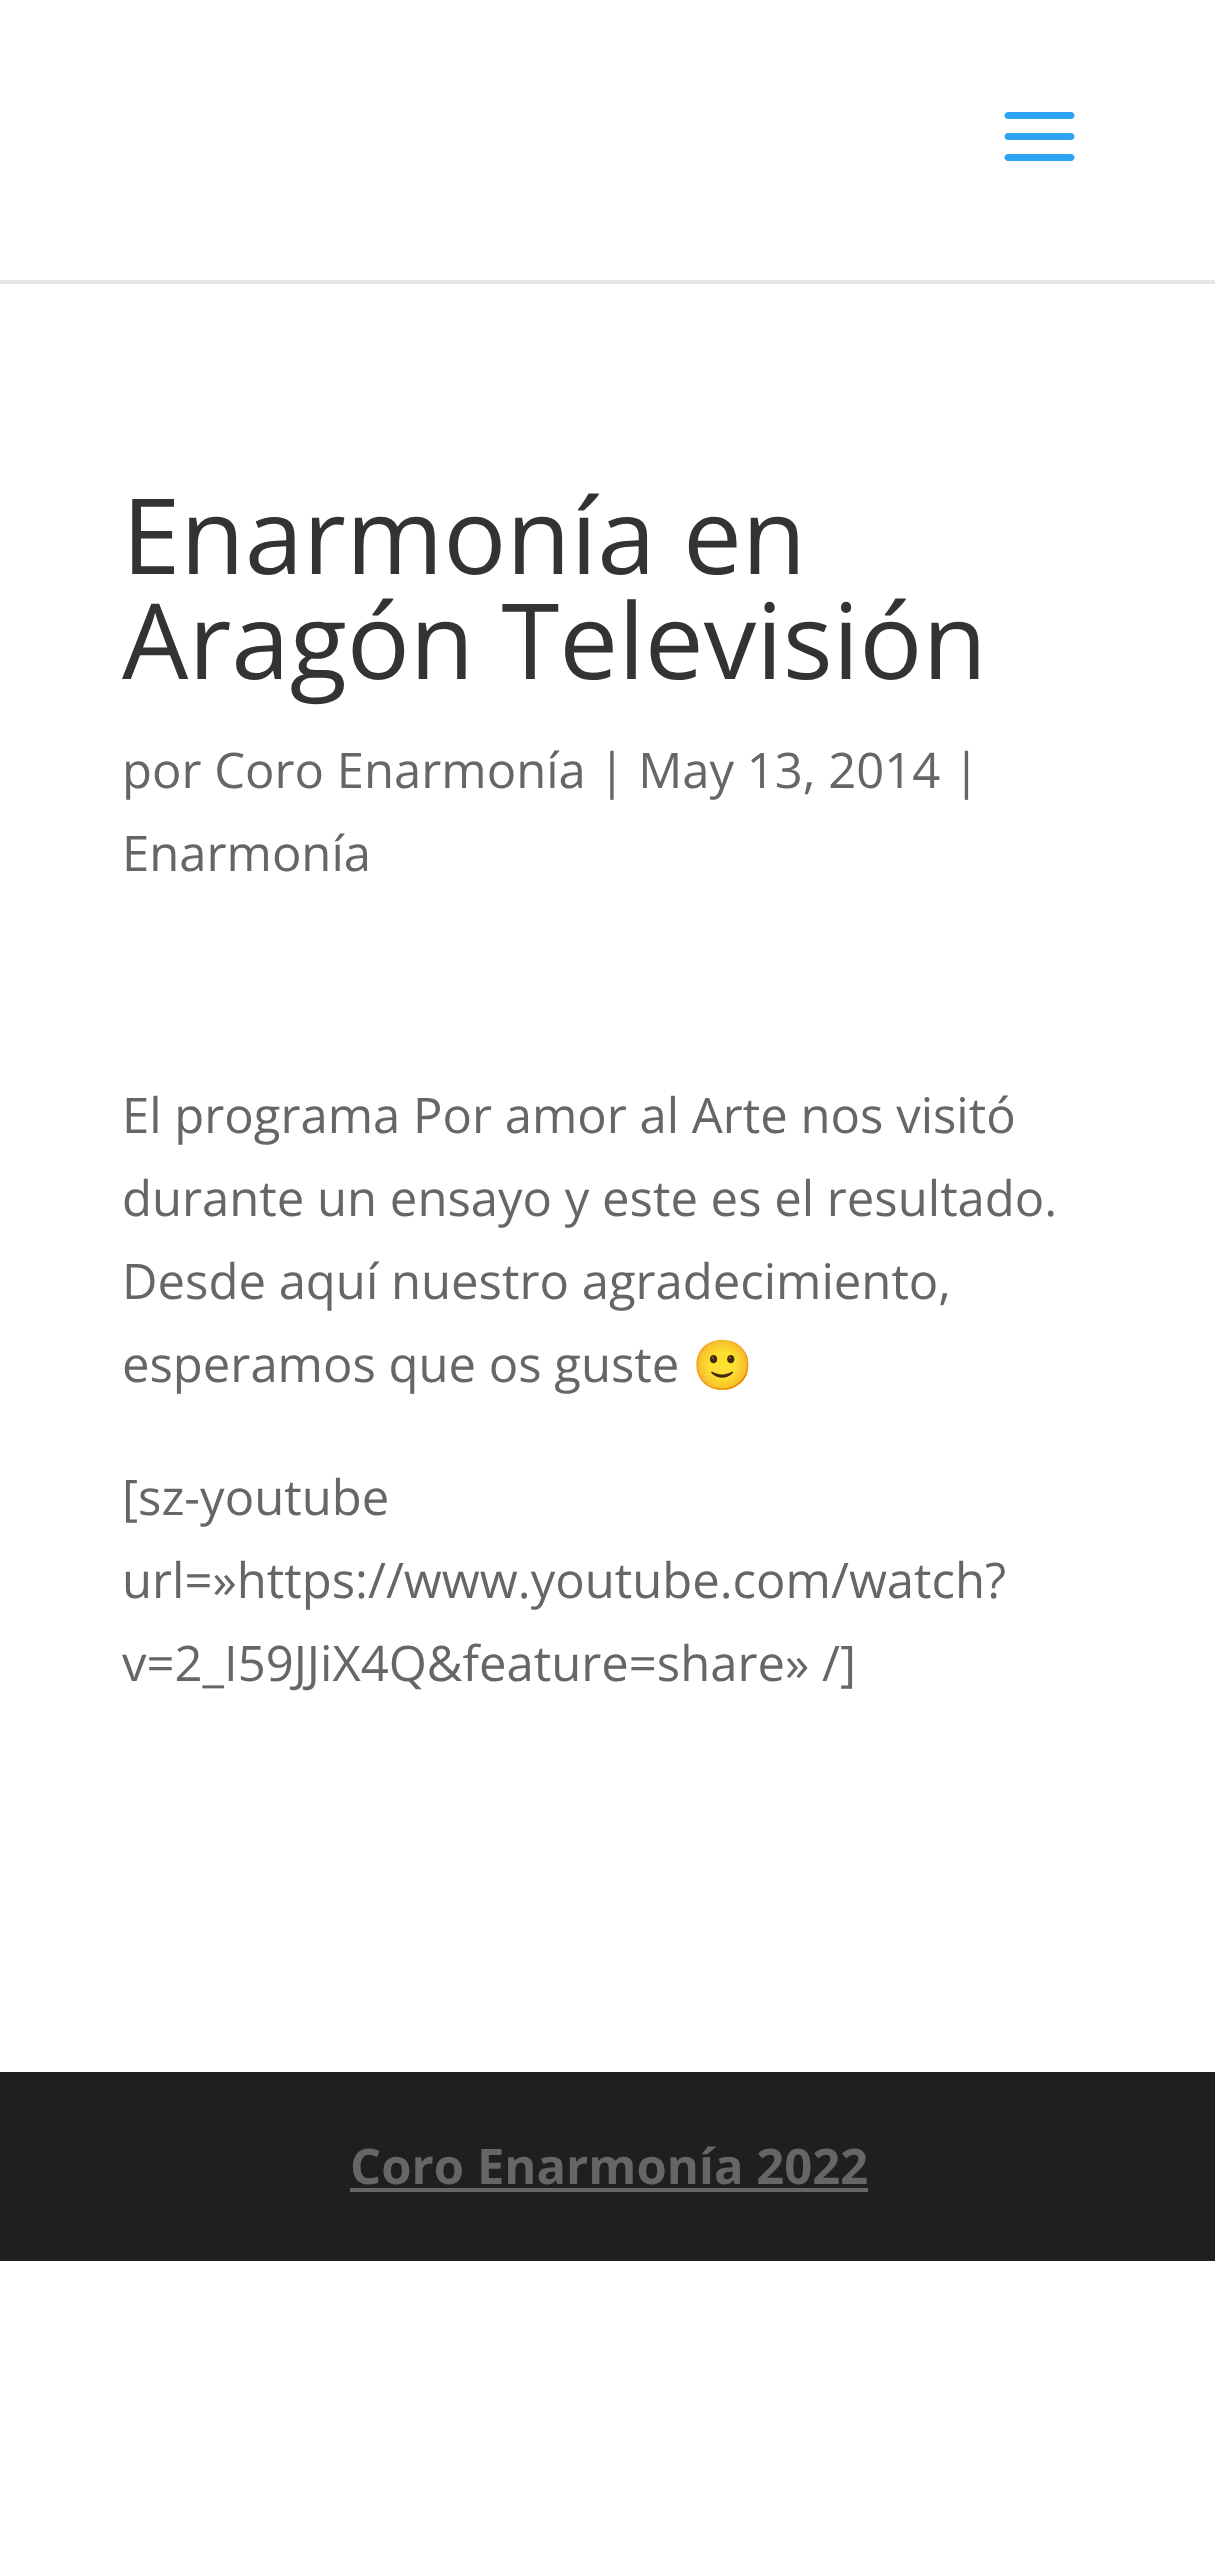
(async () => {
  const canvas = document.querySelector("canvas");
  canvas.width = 1215;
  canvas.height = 2569;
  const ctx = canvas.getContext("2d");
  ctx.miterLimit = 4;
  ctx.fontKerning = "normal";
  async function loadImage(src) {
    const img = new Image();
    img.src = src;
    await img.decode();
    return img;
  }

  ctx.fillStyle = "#ffffff";
  ctx.fillRect(0, 0, 1215, 2569);
  ctx.fillStyle = "#e6e6e6";
  ctx.fillRect(0, 280, 1215, 4);
  ctx.drawImage(await loadImage("img/1.png"), 1004, 112, 71, 49);
  ctx.fillStyle = "#1f1f1f";
  ctx.fillRect(0, 2072, 1215, 189);
  ctx.fillStyle = "#666666";
  ctx.fillRect(350, 2188, 518, 4);
  ctx.font = "105px Open Sans";
  ctx.fillStyle = "#333333";
  ctx.fillText("Enarmonía en", 122, 574);
  ctx.fillText("Aragón Televisión", 122, 679);
  ctx.font = "49px Open Sans";
  ctx.fillStyle = "#666666";
  for (const [text, x, y] of [
    ["por Coro Enarmonía | May 13, 2014 |", 122, 788],
    ["Enarmonía", 122, 871],
    ["El programa Por amor al Arte nos visitó", 122, 1133],
    ["durante un ensayo y este es el resultado.", 122, 1216],
    ["Desde aquí nuestro agradecimiento,", 122, 1299],
    ["esperamos que os guste", 122, 1382],
  ]) {
    ctx.fillText(text, x, y);
  }
  ctx.font = "49px Noto Color Emoji";
  ctx.fillText("🙂", 692, 1382);
  ctx.font = "49px Open Sans";
  for (const [text, x, y] of [
    ["[sz-youtube", 122, 1515],
    ["url=»https://www.youtube.com/watch?", 122, 1598],
    ["v=2_I59JJiX4Q&feature=share» /]", 122, 1681],
  ]) {
    ctx.fillText(text, x, y);
  }
  ctx.font = "bold 49px Open Sans";
  ctx.fillText("Coro Enarmonía 2022", 350, 2184);
})();
